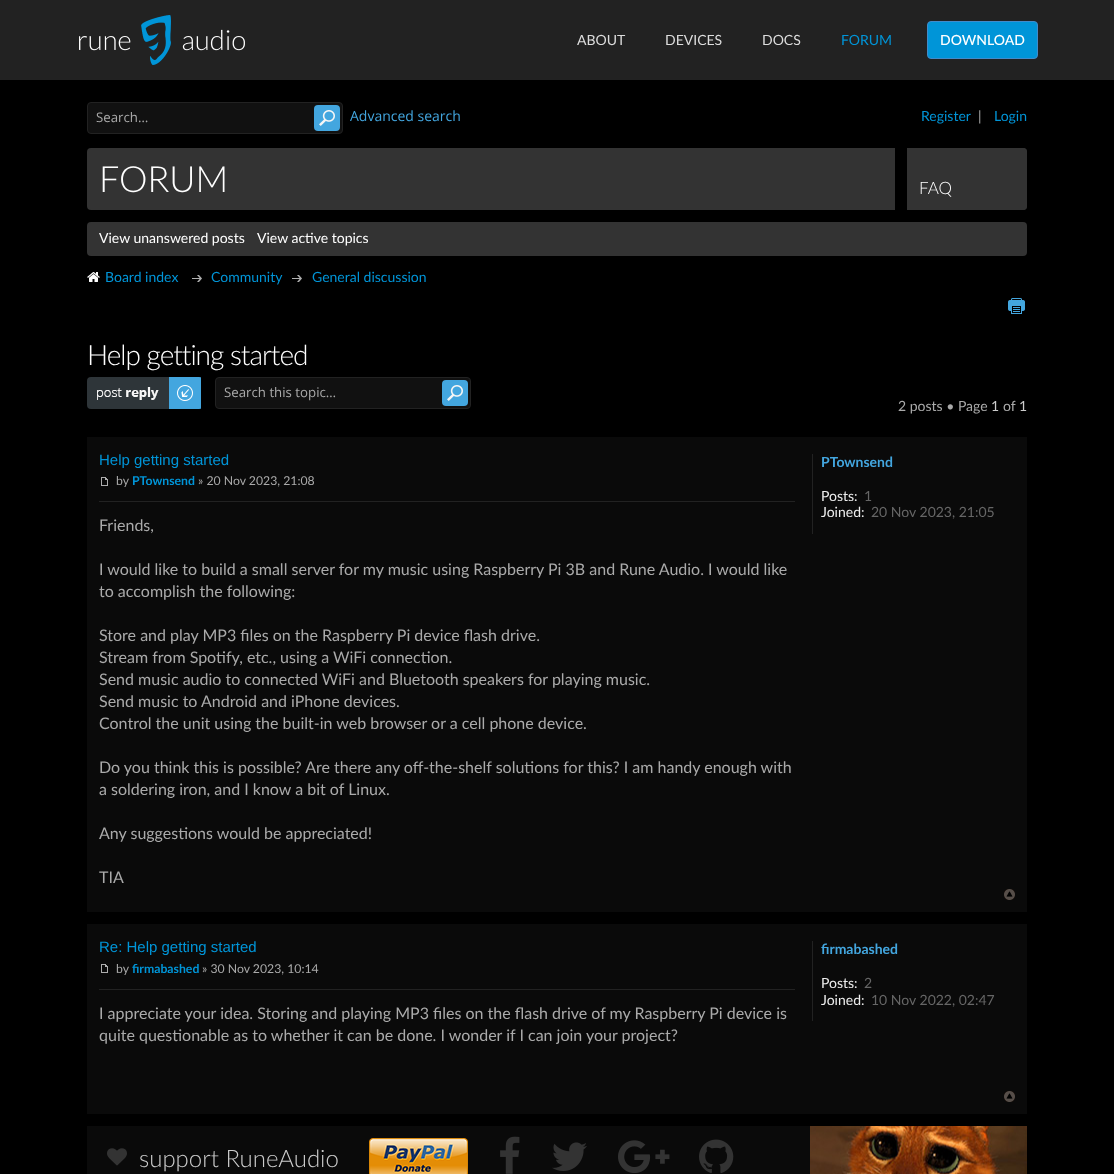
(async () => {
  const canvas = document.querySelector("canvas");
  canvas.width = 1114;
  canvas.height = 1174;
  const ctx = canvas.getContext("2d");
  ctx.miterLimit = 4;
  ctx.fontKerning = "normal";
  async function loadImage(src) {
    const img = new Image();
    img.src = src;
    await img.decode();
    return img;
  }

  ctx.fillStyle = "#000000";
  ctx.fillRect(0, 0, 1114, 1174);
  ctx.fillStyle = "#222222";
  ctx.fillRect(0, 0, 1114, 80);
  ctx.drawImage(await loadImage("img/1.png"), 79, 15, 166, 50);
  ctx.fillStyle = "#0095d8";
  ctx.beginPath();
  ctx.roundRect(927.5, 21.5, 110, 37, 3.5);
  ctx.fill();
  ctx.strokeStyle = "#428bca";
  ctx.stroke();
  ctx.fillStyle = "#111111";
  ctx.beginPath();
  ctx.roundRect(87.5, 102.5, 255, 31, 3.5);
  ctx.fill();
  ctx.strokeStyle = "#222222";
  ctx.stroke();
  ctx.drawImage(await loadImage("img/2.png"), 314, 105, 26, 26);
  ctx.fillStyle = "#333333";
  ctx.beginPath();
  ctx.roundRect(87, 148, 940, 62, 4);
  ctx.fill();
  ctx.fillStyle = "#000000";
  ctx.fillRect(895, 148, 12, 62);
  ctx.fillStyle = "#333333";
  ctx.beginPath();
  ctx.roundRect(907, 148, 120, 62, [0, 4, 4, 0]);
  ctx.fill();
  ctx.beginPath();
  ctx.roundRect(87, 222, 940, 34, 4);
  ctx.fill();
  ctx.drawImage(await loadImage("img/3.png"), 87, 272, 13, 10);
  ctx.drawImage(await loadImage("img/4.png"), 192, 275, 10, 7);
  ctx.drawImage(await loadImage("img/4.png"), 292, 275, 10, 7);
  ctx.drawImage(await loadImage("img/5.png"), 1008, 298, 17, 16);
  ctx.drawImage(await loadImage("img/6.png"), 87, 377, 114, 32);
  ctx.fillStyle = "#111111";
  ctx.beginPath();
  ctx.roundRect(215.5, 377.5, 255, 31, 3.5);
  ctx.fill();
  ctx.stroke();
  ctx.drawImage(await loadImage("img/2.png"), 442, 380, 26, 26);
  ctx.fillStyle = "#0a0a0a";
  ctx.fillRect(87, 437, 940, 475);
  ctx.drawImage(await loadImage("img/7.png"), 101, 477, 7, 9);
  ctx.fillStyle = "#222222";
  ctx.fillRect(99, 501, 696, 1);
  ctx.fillRect(812, 454, 1, 80);
  ctx.drawImage(await loadImage("img/8.png"), 1004, 889, 11, 11);
  ctx.fillStyle = "#0a0a0a";
  ctx.fillRect(87, 924, 940, 190);
  ctx.drawImage(await loadImage("img/7.png"), 101, 964, 7, 9);
  ctx.fillStyle = "#222222";
  ctx.fillRect(99, 989, 696, 1);
  ctx.fillRect(812, 941, 1, 80);
  ctx.drawImage(await loadImage("img/8.png"), 1004, 1091, 11, 11);
  ctx.drawImage(await loadImage("img/9.png"), 810, 1126, 217, 48);
  ctx.fillStyle = "#0a0a0a";
  ctx.fillRect(87, 1126, 723, 48);
  ctx.drawImage(await loadImage("img/10.png"), 107, 1148, 20, 18);
  ctx.drawImage(await loadImage("img/11.png"), 369, 1138, 99, 36);
  ctx.drawImage(await loadImage("img/12.png"), 500, 1136, 20, 38);
  ctx.drawImage(await loadImage("img/13.png"), 552, 1142, 35, 29);
  ctx.drawImage(await loadImage("img/14.png"), 618, 1140, 52, 33);
  ctx.drawImage(await loadImage("img/15.png"), 699, 1139, 35, 34);
  ctx.font = "14px Lato";
  ctx.fillStyle = "#dddddd";
  for (const [text, x, y] of [
    ["ABOUT", 577, 45],
    ["DEVICES", 665, 45],
    ["DOCS", 762, 45],
  ]) {
    ctx.fillText(text, x, y);
  }
  ctx.fillStyle = "#0095d8";
  ctx.fillText("FORUM", 841, 45);
  ctx.font = "500 14px Lato";
  ctx.fillStyle = "#ffffff";
  ctx.fillText("DOWNLOAD", 940, 45);
  ctx.font = "13.25px Open Sans";
  ctx.fillStyle = "#aaaaaa";
  ctx.fillText("Search…", 96, 122);
  ctx.font = "14px Open Sans";
  ctx.fillStyle = "#43a6df";
  ctx.fillText("Advanced search", 350, 121);
  ctx.font = "14px Lato";
  ctx.fillStyle = "#0095d8";
  ctx.fillText("Register", 921, 121);
  ctx.fillStyle = "#aaaaaa";
  ctx.fillText("|", 978, 121);
  ctx.fillStyle = "#0095d8";
  ctx.fillText("Login", 994, 121);
  ctx.font = "300 36px Lato";
  ctx.fillStyle = "#ffffff";
  ctx.fillText("FORUM", 99, 192);
  ctx.font = "300 17px Lato";
  ctx.fillText("FAQ", 919, 194);
  ctx.font = "14px Lato";
  ctx.fillText("View unanswered posts", 99, 243);
  ctx.fillText("View active topics", 257, 243);
  ctx.fillStyle = "#0095d8";
  for (const [text, x, y] of [
    ["Board index", 105, 282],
    ["Community", 211, 282],
    ["General discussion", 312, 282],
  ]) {
    ctx.fillText(text, x, y);
  }
  ctx.letterSpacing = "-1px";
  ctx.font = "300 28px Lato";
  ctx.fillStyle = "#ffffff";
  ctx.fillText("Help getting started", 87, 365);
  ctx.letterSpacing = "0px";
  ctx.font = "13.25px Open Sans";
  ctx.fillStyle = "#aaaaaa";
  ctx.fillText("Search this topic…", 224, 397);
  ctx.font = "14px Lato";
  ctx.fillText("2 posts • Page", 898, 411);
  ctx.fillStyle = "#cccccc";
  ctx.fillText("1", 991, 411);
  ctx.fillStyle = "#aaaaaa";
  ctx.fillText("of", 1003, 411);
  ctx.fillStyle = "#cccccc";
  ctx.fillText("1", 1019, 411);
  ctx.font = "15px Liberation Sans";
  ctx.fillStyle = "#0095d8";
  ctx.fillText("Help getting started", 99, 465);
  ctx.font = "12.25px Lato";
  ctx.fillStyle = "#aaaaaa";
  ctx.fillText("by", 116, 485);
  ctx.font = "bold 12.25px Lato";
  ctx.fillStyle = "#0095d8";
  ctx.fillText("PTownsend", 132, 485);
  ctx.font = "12.25px Lato";
  ctx.fillStyle = "#aaaaaa";
  ctx.fillText("» 20 Nov 2023, 21:08", 198, 485);
  ctx.font = "16px Lato";
  for (const [text, x, y] of [
    ["Friends,", 99, 531],
    ["I would like to build a small server for my music using Raspberry Pi 3B and Rune Audio. I would like", 99, 575],
    ["to accomplish the following:", 99, 597],
    ["Store and play MP3 files on the Raspberry Pi device flash drive.", 99, 641],
    ["Stream from Spotify, etc., using a WiFi connection.", 99, 663],
    ["Send music audio to connected WiFi and Bluetooth speakers for playing music.", 99, 685],
    ["Send music to Android and iPhone devices.", 99, 707],
    ["Control the unit using the built-in web browser or a cell phone device.", 99, 729],
    ["Do you think this is possible? Are there any off-the-shelf solutions for this? I am handy enough with", 99, 773],
    ["a soldering iron, and I know a bit of Linux.", 99, 795],
    ["Any suggestions would be appreciated!", 99, 839],
    ["TIA", 99, 883],
  ]) {
    ctx.fillText(text, x, y);
  }
  ctx.font = "bold 14px Lato";
  ctx.fillStyle = "#43a6df";
  ctx.fillText("PTownsend", 821, 467);
  ctx.font = "14px Lato";
  ctx.fillStyle = "#eeeeee";
  ctx.fillText("Posts:", 821, 501);
  ctx.fillStyle = "#666666";
  ctx.fillText("1", 864, 501);
  ctx.fillStyle = "#eeeeee";
  ctx.fillText("Joined:", 821, 517);
  ctx.fillStyle = "#666666";
  ctx.fillText("20 Nov 2023, 21:05", 871, 517);
  ctx.font = "15px Liberation Sans";
  ctx.fillStyle = "#0095d8";
  ctx.fillText("Re: Help getting started", 99, 952);
  ctx.font = "12.25px Lato";
  ctx.fillStyle = "#aaaaaa";
  ctx.fillText("by", 116, 973);
  ctx.font = "bold 12.25px Lato";
  ctx.fillStyle = "#0095d8";
  ctx.fillText("firmabashed", 132, 973);
  ctx.font = "12.25px Lato";
  ctx.fillStyle = "#aaaaaa";
  ctx.fillText("» 30 Nov 2023, 10:14", 202, 973);
  ctx.font = "16px Lato";
  ctx.fillText("I appreciate your idea. Storing and playing MP3 files on the flash drive of my Raspberry Pi device is", 99, 1019);
  ctx.fillText("quite questionable as to whether it can be done. I wonder if I can join your project?", 99, 1041);
  ctx.font = "bold 14px Lato";
  ctx.fillStyle = "#43a6df";
  ctx.fillText("firmabashed", 821, 954);
  ctx.font = "14px Lato";
  ctx.fillStyle = "#eeeeee";
  ctx.fillText("Posts:", 821, 988);
  ctx.fillStyle = "#666666";
  ctx.fillText("2", 864, 988);
  ctx.fillStyle = "#eeeeee";
  ctx.fillText("Joined:", 821, 1005);
  ctx.fillStyle = "#666666";
  ctx.fillText("10 Nov 2022, 02:47", 871, 1005);
  ctx.font = "300 24px Lato";
  ctx.fillStyle = "#cccccc";
  ctx.fillText("support RuneAudio", 139, 1167);
})();
